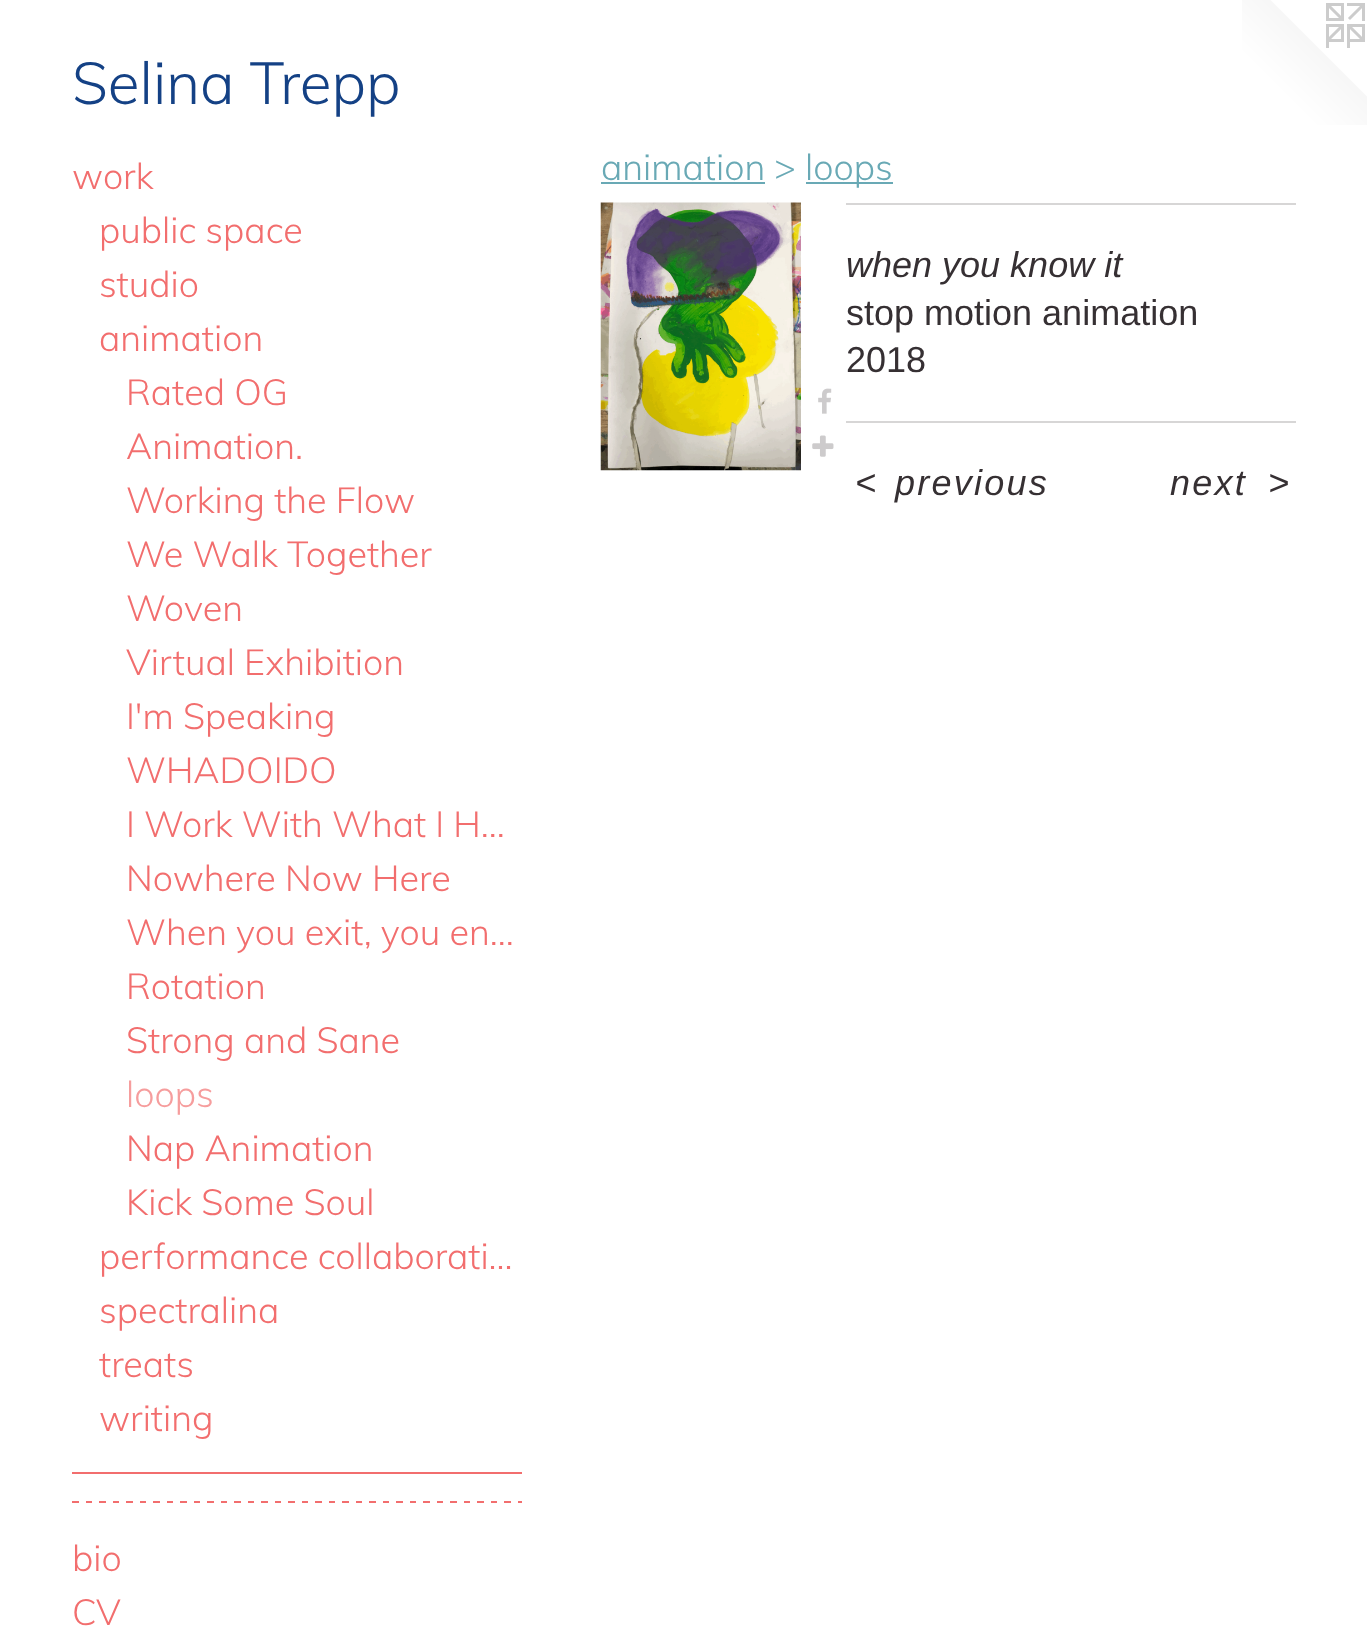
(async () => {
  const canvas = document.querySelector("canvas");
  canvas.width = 1367;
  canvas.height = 1632;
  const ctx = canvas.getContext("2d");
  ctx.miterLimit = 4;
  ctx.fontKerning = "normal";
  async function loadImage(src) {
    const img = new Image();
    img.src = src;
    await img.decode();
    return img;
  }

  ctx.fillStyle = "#ffffff";
  ctx.fillRect(0, 0, 1367, 1632);
  ctx.drawImage(await loadImage("img/1.png"), 1242, 0, 125, 125);
  ctx.fillStyle = "#f26e6e";
  ctx.fillRect(72, 1472, 450, 2);
  ctx.drawImage(await loadImage("img/2.png"), 72, 1501, 450, 2);
  ctx.fillStyle = "#69a9b5";
  ctx.fillRect(601, 182, 164, 2);
  ctx.fillRect(806, 182, 87, 2);
  ctx.drawImage(await loadImage("img/3.png"), 600, 202, 201, 269);
  ctx.drawImage(await loadImage("img/4.png"), 818, 388, 14, 26);
  ctx.drawImage(await loadImage("img/5.png"), 812, 435, 22, 22);
  ctx.fillStyle = "#d7d6d6";
  ctx.fillRect(846, 203, 450, 2);
  ctx.fillRect(846, 421, 450, 2);
  ctx.font = "300 58.5px Muli";
  ctx.fillStyle = "#144185";
  ctx.fillText("Selina Trepp", 72, 104);
  ctx.font = "300 36px Muli";
  ctx.fillStyle = "#f26e6e";
  for (const [text, x, y] of [
    ["work", 72, 189],
    ["public space", 99, 243],
    ["studio", 99, 297],
    ["animation", 99, 351],
    ["Rated OG", 126, 405],
    ["Animation.", 126, 459],
    ["Working the Flow", 126, 513],
    ["We Walk Together", 126, 567],
    ["Woven", 126, 621],
    ["Virtual Exhibition", 126, 675],
    ["I'm Speaking", 126, 729],
    ["WHADOIDO", 126, 783],
    ["I Work With What I H…", 126, 837],
    ["Nowhere Now Here", 126, 891],
    ["When you exit, you en…", 126, 945],
    ["Rotation", 126, 999],
    ["Strong and Sane", 126, 1053],
  ]) {
    ctx.fillText(text, x, y);
  }
  ctx.fillStyle = "#f69d9d";
  ctx.fillText("loops", 126, 1107);
  ctx.fillStyle = "#f26e6e";
  for (const [text, x, y] of [
    ["Nap Animation", 126, 1161],
    ["Kick Some Soul", 126, 1215],
    ["performance collaborati…", 99, 1269],
    ["spectralina", 99, 1323],
    ["treats", 99, 1377],
    ["writing", 99, 1431],
    ["bio", 72, 1571],
    ["CV", 72, 1625],
  ]) {
    ctx.fillText(text, x, y);
  }
  ctx.fillStyle = "#69a9b5";
  ctx.fillText("animation >", 601, 180);
  ctx.fillText("loops", 805, 180);
  ctx.font = "italic 36px Liberation Sans";
  ctx.fillStyle = "#363033";
  ctx.fillText("when you know it", 846, 277);
  ctx.font = "36px Liberation Sans";
  ctx.fillText("stop motion animation", 846, 325);
  ctx.fillText("2018", 846, 372);
  ctx.letterSpacing = "2.25px";
  ctx.font = "italic 36px Liberation Sans";
  for (const [text, x, y] of [
    ["<", 855, 495],
    ["previous", 895, 495],
    ["next", 1170, 495],
    [">", 1268, 495],
  ]) {
    ctx.fillText(text, x, y);
  }
})();
